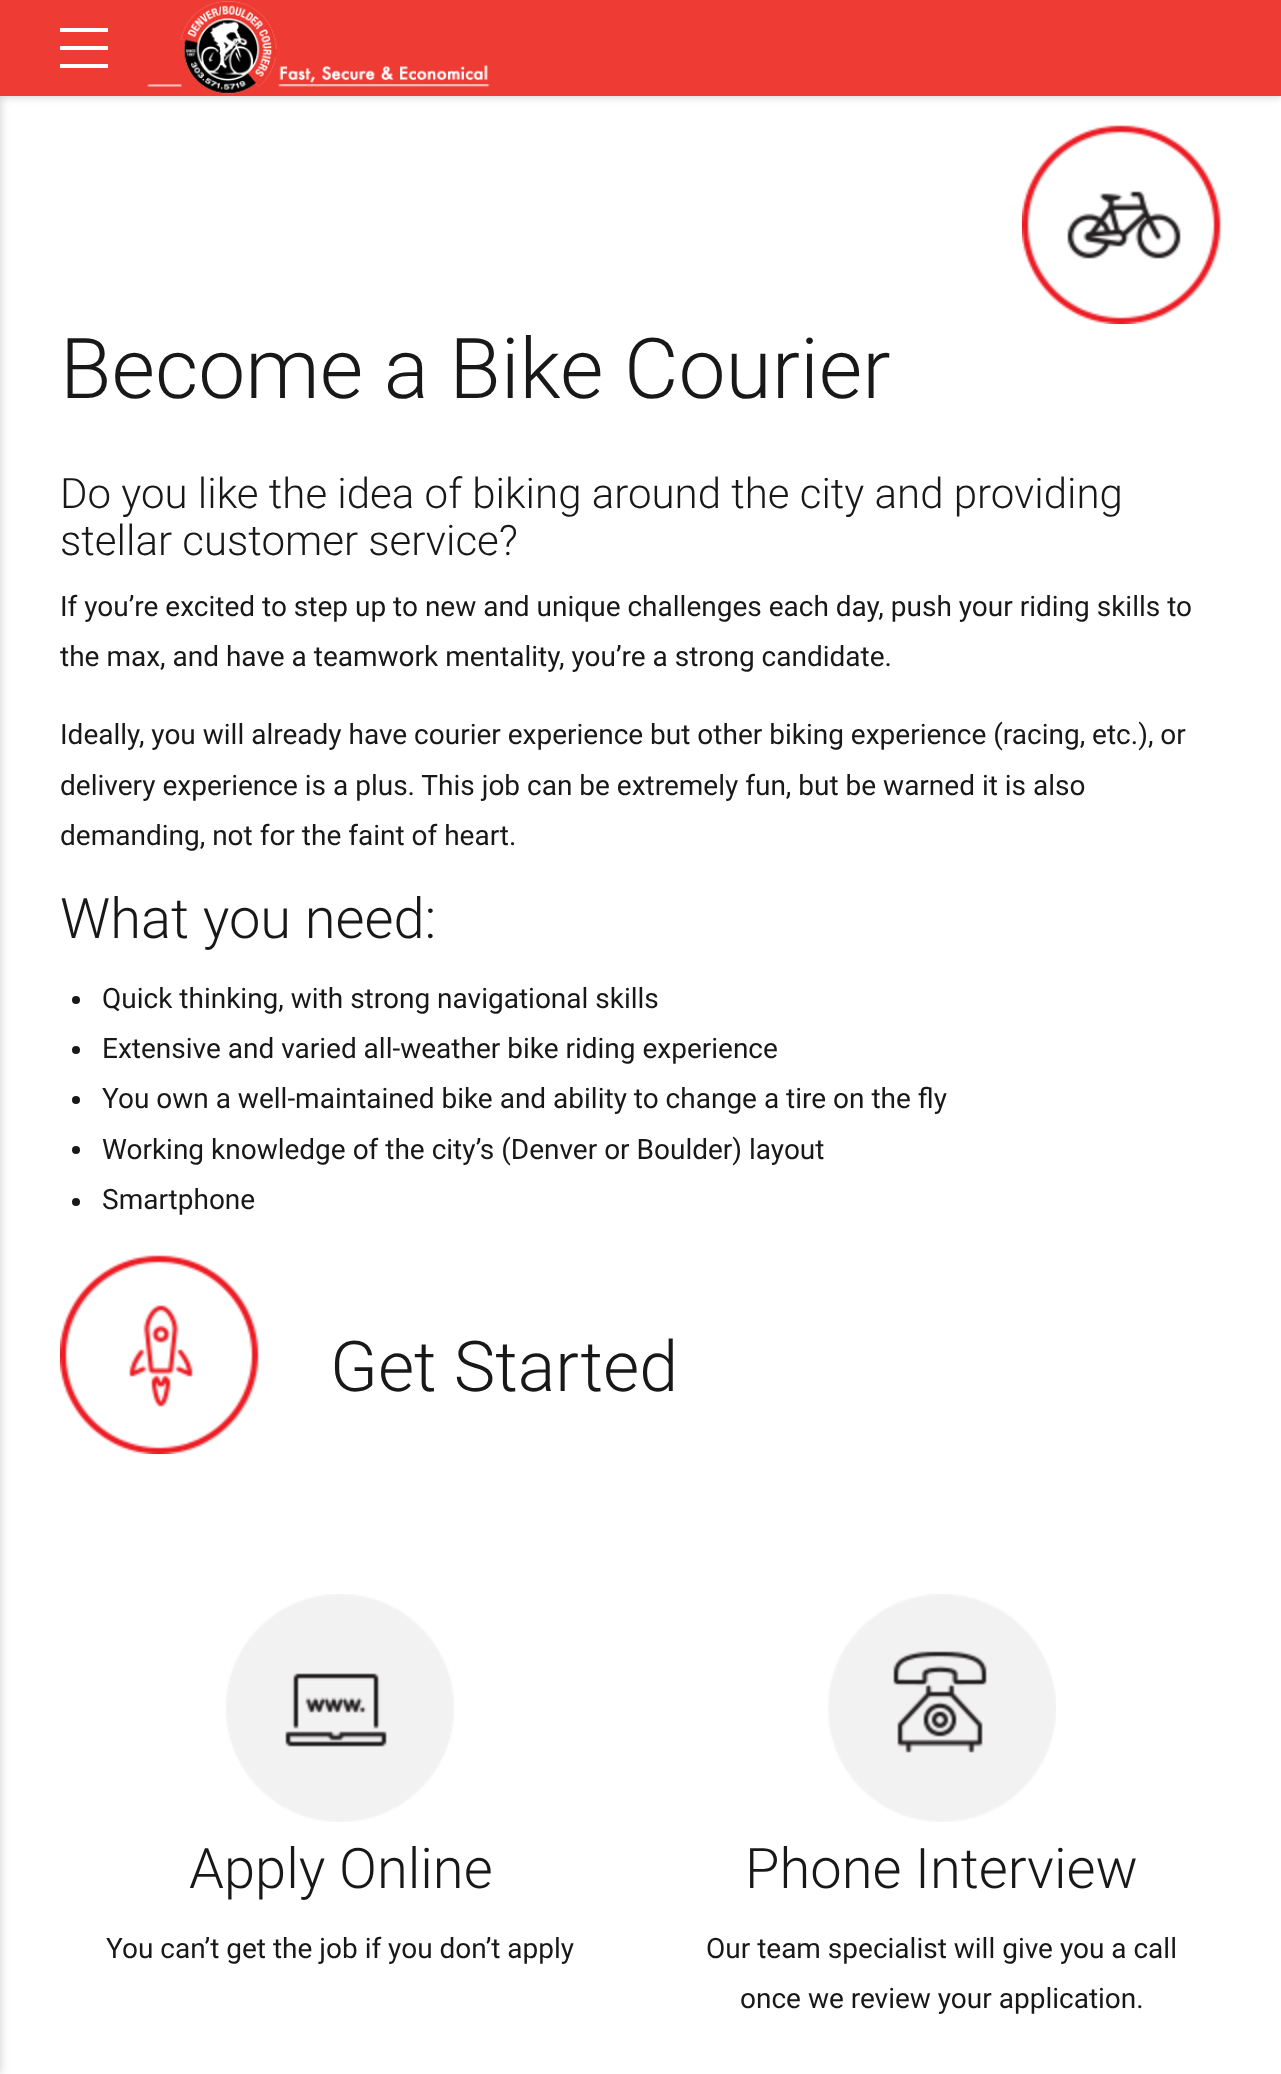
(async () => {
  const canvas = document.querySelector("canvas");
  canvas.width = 1281;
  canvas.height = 2074;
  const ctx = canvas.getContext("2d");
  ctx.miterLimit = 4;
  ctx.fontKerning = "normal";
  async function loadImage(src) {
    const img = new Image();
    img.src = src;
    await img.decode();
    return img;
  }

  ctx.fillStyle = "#ffffff";
  ctx.fillRect(0, 0, 1281, 2074);
  ctx.fillStyle = "rgba(0, 0, 0, 0.2)";
  ctx.filter = "blur(5px)";
  ctx.beginPath();
  ctx.rect(-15, 0, 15, 2074);
  ctx.fill();
  ctx.filter = "none";
  ctx.filter = "blur(5px)";
  ctx.beginPath();
  ctx.rect(0, 0, 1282, 96);
  ctx.fill();
  ctx.filter = "none";
  for (const [x, y, w, h, color] of [
    [0, 0, 1281, 96, "#ee3b33"],
    [60, 28, 48, 4, "#ffffff"],
    [60, 46, 48, 4, "#ffffff"],
    [60, 64, 48, 4, "#ffffff"],
  ]) {
    ctx.fillStyle = color;
    ctx.fillRect(x, y, w, h);
  }
  ctx.drawImage(await loadImage("img/1.png"), 147, 1, 343, 93);
  ctx.drawImage(await loadImage("img/2.png"), 1022, 125, 199, 199);
  ctx.fillStyle = "#181818";
  ctx.beginPath();
  ctx.arc(76, 1000, 4, 0, Math.PI * 2);
  ctx.fill();
  ctx.beginPath();
  ctx.arc(76, 1050, 4, 0, Math.PI * 2);
  ctx.fill();
  ctx.beginPath();
  ctx.arc(76, 1100, 4, 0, Math.PI * 2);
  ctx.fill();
  ctx.beginPath();
  ctx.arc(76, 1150, 4, 0, Math.PI * 2);
  ctx.fill();
  ctx.beginPath();
  ctx.arc(76, 1202, 4, 0, Math.PI * 2);
  ctx.fill();
  ctx.drawImage(await loadImage("img/3.png"), 60, 1255, 199, 199);
  ctx.drawImage(await loadImage("img/4.png"), 226, 1594, 228, 228);
  ctx.drawImage(await loadImage("img/5.png"), 828, 1594, 228, 228);
  ctx.font = "300 84px Roboto";
  ctx.fillText("Become a Bike Courier", 60, 398);
  ctx.font = "300 42px Roboto";
  ctx.fillText("Do you like the idea of biking around the city and providing", 60, 508);
  ctx.fillText("stellar customer service?", 60, 555);
  ctx.font = "28px Roboto";
  for (const [text, x, y] of [
    ["If you’re excited to step up to new and unique challenges each day, push your riding skills to", 60, 616],
    ["the max, and have a teamwork mentality, you’re a strong candidate.", 60, 666],
    ["Ideally, you will already have courier experience but other biking experience (racing, etc.), or", 60, 744],
    ["delivery experience is a plus. This job can be extremely fun, but be warned it is also", 60, 795],
    ["demanding, not for the faint of heart.", 60, 845],
  ]) {
    ctx.fillText(text, x, y);
  }
  ctx.font = "300 56px Roboto";
  ctx.fillText("What you need:", 60, 938);
  ctx.font = "28px Roboto";
  for (const [text, x, y] of [
    ["Quick thinking, with strong navigational skills", 102, 1008],
    ["Extensive and varied all-weather bike riding experience", 102, 1058],
    ["You own a well-maintained bike and ability to change a tire on the fly", 102, 1108],
    ["Working knowledge of the city’s (Denver or Boulder) layout", 102, 1159],
    ["Smartphone", 102, 1209],
  ]) {
    ctx.fillText(text, x, y);
  }
  ctx.font = "300 70px Roboto";
  ctx.fillText("Get Started", 330, 1391);
  ctx.font = "300 56px Roboto";
  ctx.fillText("Apply Online", 189, 1888);
  ctx.font = "28px Roboto";
  ctx.fillText("You can’t get the job if you don’t apply", 106, 1958);
  ctx.font = "300 56px Roboto";
  ctx.fillText("Phone Interview", 745, 1888);
  ctx.font = "28px Roboto";
  ctx.fillText("Our team specialist will give you a call", 706, 1958);
  ctx.fillText("once we review your application.", 740, 2008);
})();
